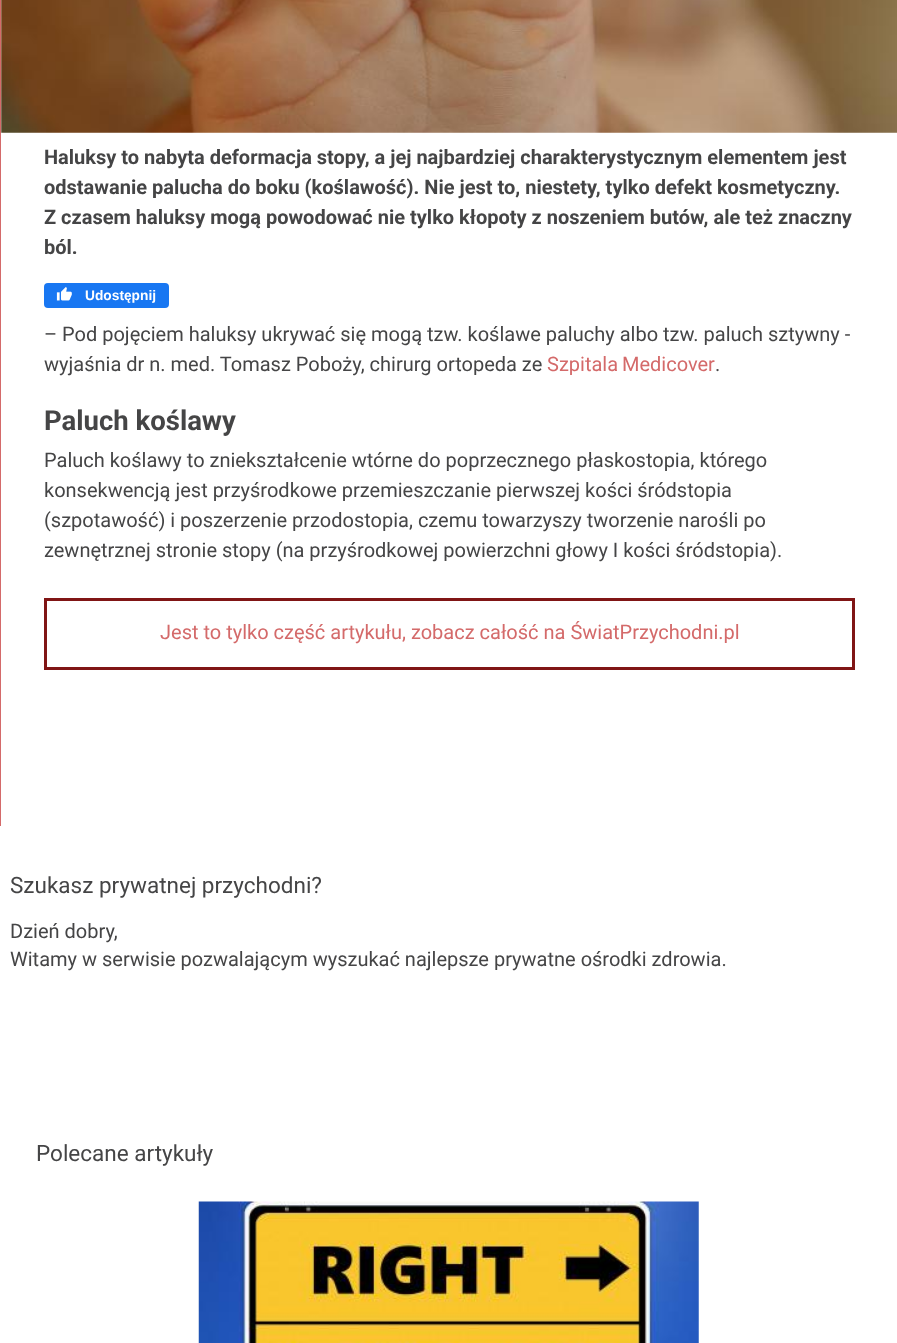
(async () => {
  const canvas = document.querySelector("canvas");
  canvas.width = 897;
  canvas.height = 1343;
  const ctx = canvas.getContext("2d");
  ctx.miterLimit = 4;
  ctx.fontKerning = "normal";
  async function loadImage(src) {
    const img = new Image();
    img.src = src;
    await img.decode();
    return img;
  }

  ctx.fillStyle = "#ffffff";
  ctx.fillRect(0, 0, 897, 1343);
  ctx.fillStyle = "#d46a6a";
  ctx.fillRect(0, 0, 1, 826);
  ctx.drawImage(await loadImage("img/1.png"), 1, 0, 896, 133);
  ctx.fillStyle = "#1877f2";
  ctx.beginPath();
  ctx.roundRect(44, 283, 125, 25, 4);
  ctx.fill();
  ctx.drawImage(await loadImage("img/2.png"), 56, 287, 16, 14);
  ctx.strokeStyle = "#801515";
  ctx.lineWidth = 3;
  ctx.strokeRect(45.5, 599.5, 808, 69);
  ctx.drawImage(await loadImage("img/3.png"), 198, 1201, 501, 142);
  ctx.font = "bold 20px Roboto";
  ctx.fillStyle = "#454546";
  for (const [text, x, y] of [
    ["Haluksy to nabyta deformacja stopy, a jej najbardziej charakterystycznym elementem jest", 44, 164],
    ["odstawanie palucha do boku (koślawość). Nie jest to, niestety, tylko defekt kosmetyczny.", 44, 194],
    ["Z czasem haluksy mogą powodować nie tylko kłopoty z noszeniem butów, ale też znaczny", 44, 224],
    ["ból.", 44, 254],
  ]) {
    ctx.fillText(text, x, y);
  }
  ctx.font = "bold 13.75px Liberation Sans";
  ctx.fillStyle = "#ffffff";
  ctx.fillText("Udostępnij", 85, 300);
  ctx.font = "20px Roboto";
  ctx.fillStyle = "#454546";
  ctx.fillText("– Pod pojęciem haluksy ukrywać się mogą tzw. koślawe paluchy albo tzw. paluch sztywny -", 44, 341);
  ctx.fillText("wyjaśnia dr n. med. Tomasz Poboży, chirurg ortopeda ze", 44, 371);
  ctx.wordSpacing = "-1px";
  ctx.fillStyle = "#d46a6a";
  ctx.fillText("Szpitala Medicover", 547, 371);
  ctx.wordSpacing = "0px";
  ctx.fillStyle = "#454546";
  ctx.fillText(".", 715, 371);
  ctx.font = "bold 27.5px Roboto";
  ctx.fillText("Paluch koślawy", 44, 430);
  ctx.font = "20px Roboto";
  for (const [text, x, y] of [
    ["Paluch koślawy to zniekształcenie wtórne do poprzecznego płaskostopia, którego", 44, 467],
    ["konsekwencją jest przyśrodkowe przemieszczanie pierwszej kości śródstopia", 44, 497],
    ["(szpotawość) i poszerzenie przodostopia, czemu towarzyszy tworzenie narośli po", 44, 527],
    ["zewnętrznej stronie stopy (na przyśrodkowej powierzchni głowy I kości śródstopia).", 44, 557],
  ]) {
    ctx.fillText(text, x, y);
  }
  ctx.fillStyle = "#d46a6a";
  ctx.fillText("Jest to tylko część artykułu, zobacz całość na ŚwiatPrzychodni.pl", 160, 639);
  ctx.font = "22.5px Roboto";
  ctx.fillStyle = "#454546";
  ctx.fillText("Szukasz prywatnej przychodni?", 10, 893);
  ctx.font = "20px Roboto";
  ctx.fillText("Dzień dobry,", 10, 938);
  ctx.fillText("Witamy w serwisie pozwalającym wyszukać najlepsze prywatne ośrodki zdrowia.", 10, 966);
  ctx.font = "22.5px Roboto";
  ctx.fillText("Polecane artykuły", 36, 1161);
})();
